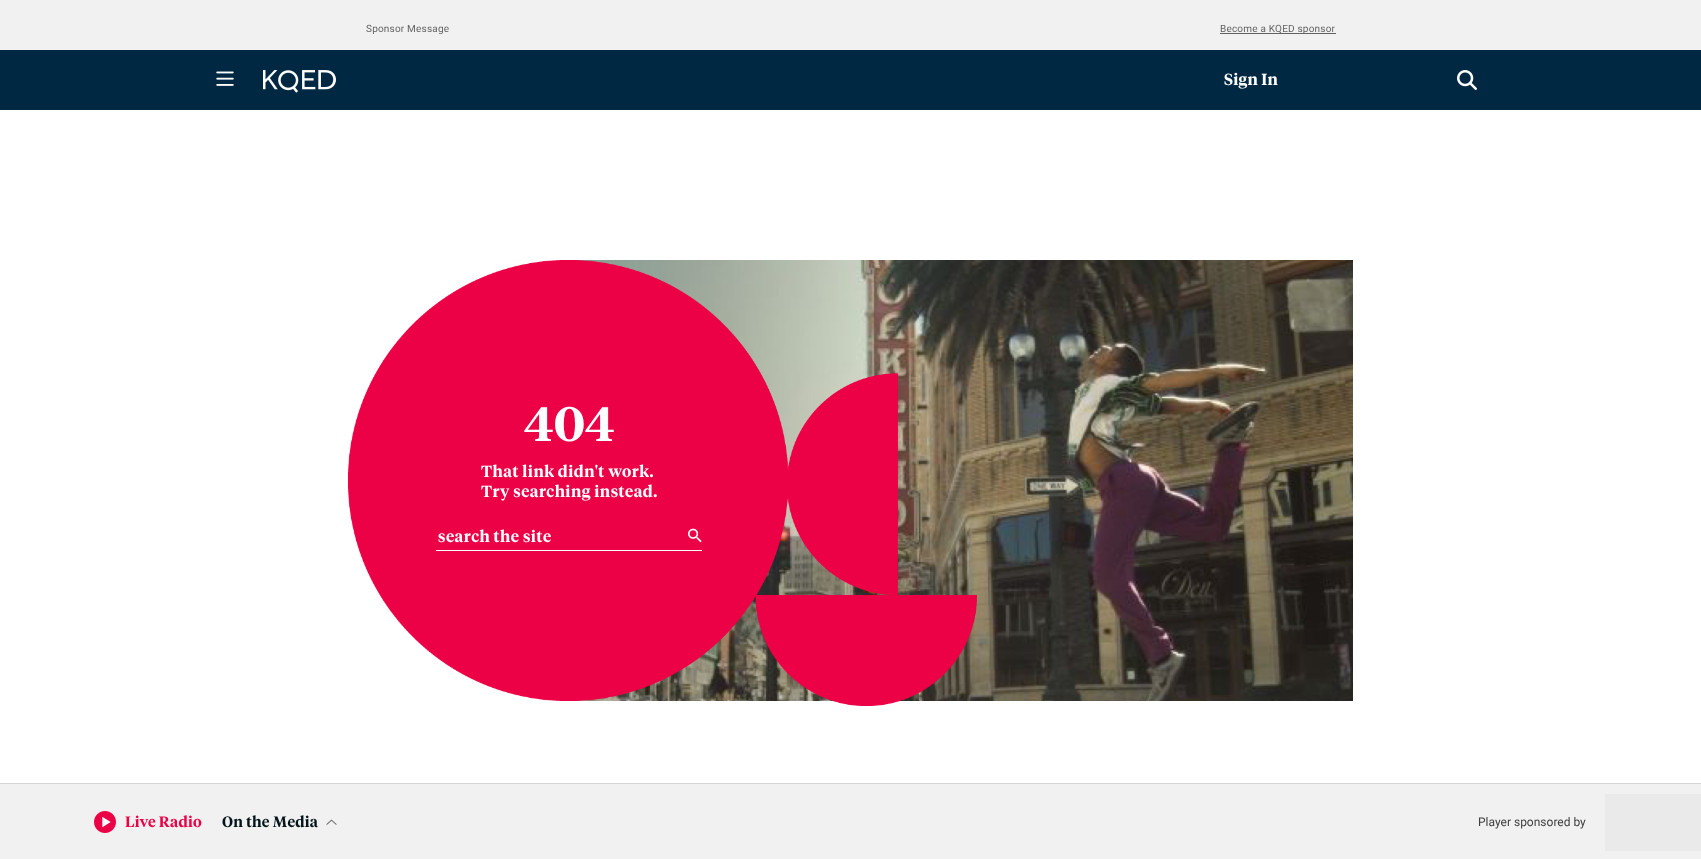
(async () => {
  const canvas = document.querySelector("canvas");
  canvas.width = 1701;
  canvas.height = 859;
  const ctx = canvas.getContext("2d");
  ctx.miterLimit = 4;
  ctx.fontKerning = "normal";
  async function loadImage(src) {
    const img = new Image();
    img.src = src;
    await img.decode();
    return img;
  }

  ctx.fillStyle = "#ffffff";
  ctx.fillRect(0, 0, 1701, 859);
  for (const [x, y, w, h, color] of [
    [0, 0, 1701, 50, "#f1f1f1"],
    [1220, 33, 116, 1, "#636363"],
    [0, 50, 1701, 60, "#012842"],
  ]) {
    ctx.fillStyle = color;
    ctx.fillRect(x, y, w, h);
  }
  ctx.drawImage(await loadImage("img/1.png"), 216, 71, 18, 15);
  ctx.drawImage(await loadImage("img/2.png"), 263, 70, 73, 23);
  ctx.drawImage(await loadImage("img/3.png"), 1457, 70, 20, 20);
  ctx.drawImage(await loadImage("img/6.png"), 576, 260, 777, 441);
  ctx.drawImage(await loadImage("img/4.png"), 348, 260, 629, 446);
  ctx.fillStyle = "#ffffff";
  ctx.fillRect(436, 550, 266, 1);
  ctx.drawImage(await loadImage("img/5.png"), 688, 528, 14, 15);
  ctx.fillStyle = "#f1f1f1";
  ctx.fillRect(0, 784, 1701, 75);
  ctx.fillStyle = "#d5d5d5";
  ctx.fillRect(0, 783, 1701, 1);
  ctx.drawImage(await loadImage("img/7.png"), 94, 811, 22, 22);
  ctx.drawImage(await loadImage("img/8.png"), 326, 819, 11, 6);
  ctx.fillStyle = "#eaeaea";
  ctx.fillRect(1605, 794, 96, 57);
  ctx.letterSpacing = "0.2px";
  ctx.font = "10px Roboto";
  ctx.fillStyle = "#636363";
  ctx.fillText("Sponsor Message", 366, 32);
  ctx.fillText("Become a KQED sponsor", 1220, 32);
  ctx.letterSpacing = "0.25px";
  ctx.font = "600 16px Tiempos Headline";
  ctx.fillStyle = "#ffffff";
  ctx.fillText("Sign In", 1224, 85);
  ctx.letterSpacing = "0px";
  ctx.font = "600 48px Tiempos Headline";
  ctx.fillText("404", 524, 441);
  ctx.letterSpacing = "0.5px";
  ctx.font = "600 16px Tiempos Headline";
  for (const [text, x, y] of [
    ["That link didn't work.", 481, 477],
    ["Try searching instead.", 481, 497],
    ["search the site", 438, 542],
  ]) {
    ctx.fillText(text, x, y);
  }
  ctx.letterSpacing = "0.25px";
  ctx.font = "600 15px Tiempos Headline";
  ctx.fillStyle = "#ec0046";
  ctx.fillText("Live Radio", 125, 827);
  ctx.fillStyle = "#04151a";
  ctx.fillText("On the Media", 222, 827);
  ctx.letterSpacing = "0px";
  ctx.font = "12px Roboto";
  ctx.fillStyle = "#404040";
  ctx.fillText("Player sponsored by", 1478, 826);
})();
